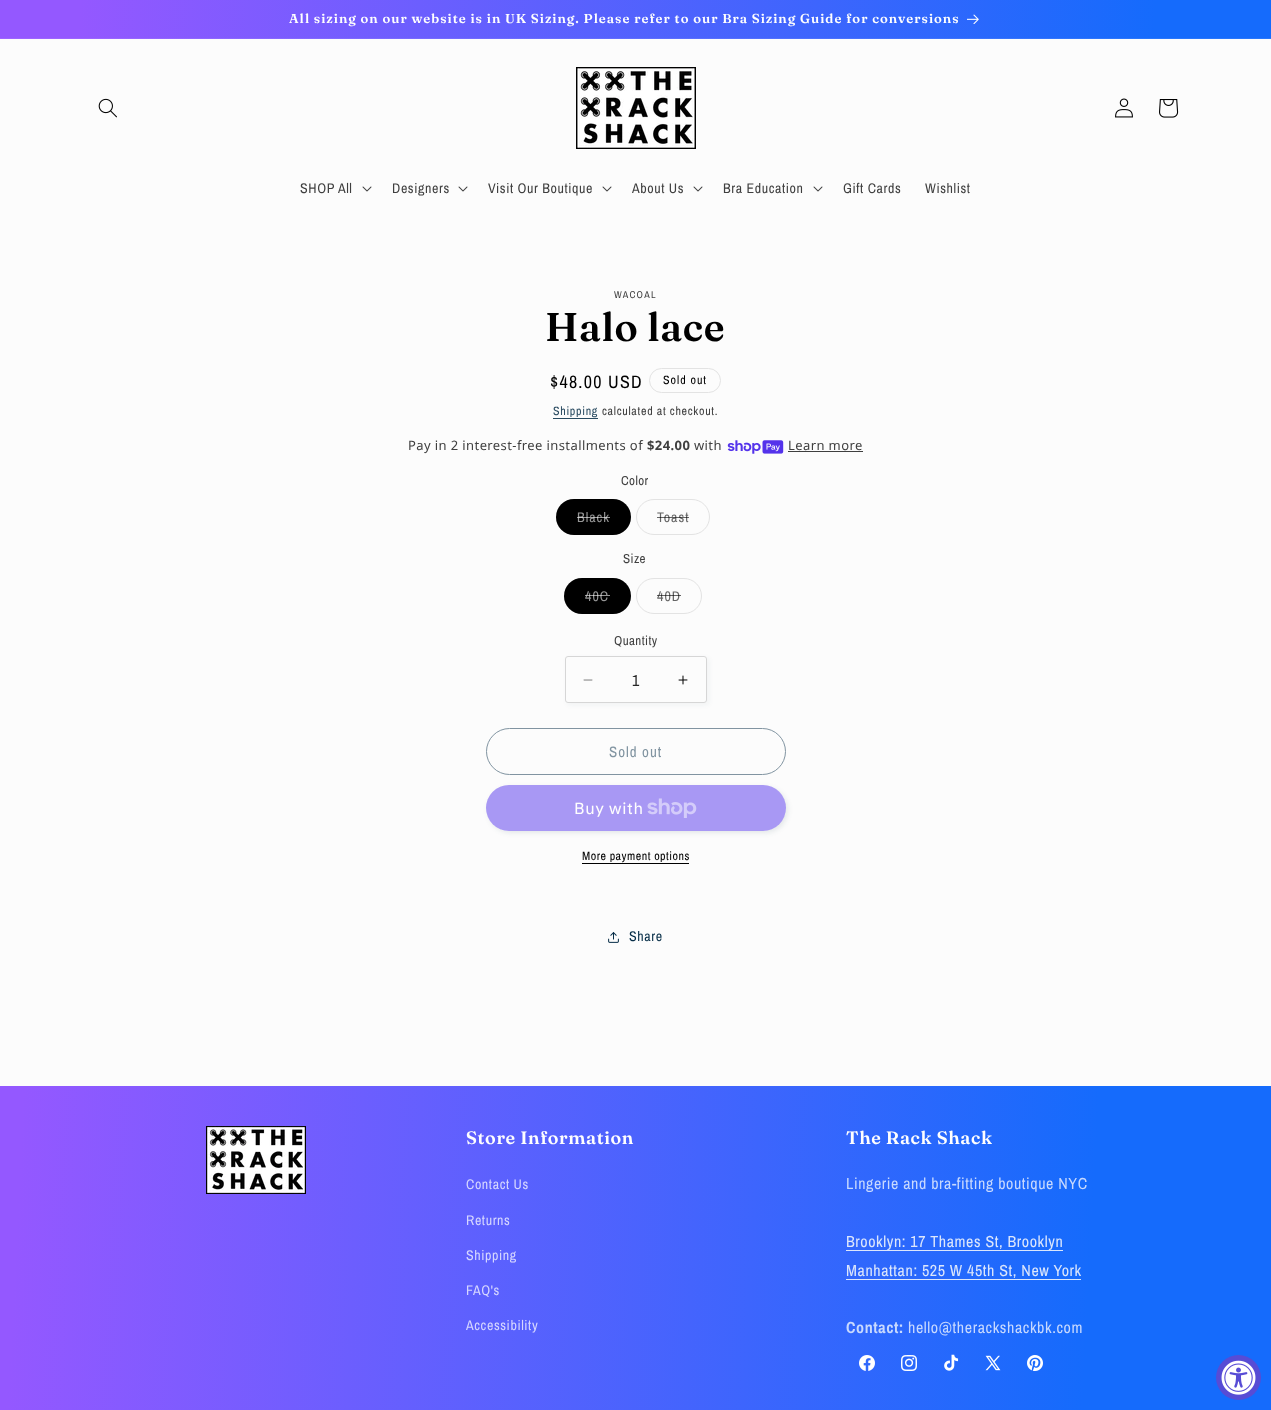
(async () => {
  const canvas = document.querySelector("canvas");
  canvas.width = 1271;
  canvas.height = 1410;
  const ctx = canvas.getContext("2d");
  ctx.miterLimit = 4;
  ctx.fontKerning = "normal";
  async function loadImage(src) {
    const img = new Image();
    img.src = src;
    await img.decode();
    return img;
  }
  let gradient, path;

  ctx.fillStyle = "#fcfcfc";
  ctx.fillRect(0, 0, 1271, 1410);
  gradient = ctx.createLinearGradient(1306, 740, -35, 670);
  gradient.addColorStop(0.14, "#156bfc");
  gradient.addColorStop(0.94, "#9458ff");
  ctx.fillStyle = gradient;
  ctx.fillRect(0, 0, 1271, 38);
  gradient = ctx.createLinearGradient(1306, 740, -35, 670);
  gradient.addColorStop(0.14, "#2877fc");
  gradient.addColorStop(0.94, "#9d65ff");
  ctx.fillStyle = gradient;
  ctx.fillRect(0, 38, 1271, 1);
  ctx.drawImage(await loadImage("img/1.png"), 967, 14, 12, 10);
  ctx.drawImage(await loadImage("img/2.png"), 98, 98, 19, 20);
  ctx.drawImage(await loadImage("img/3.png"), 576, 67, 120, 82);
  ctx.drawImage(await loadImage("img/4.png"), 1115, 98, 18, 20);
  ctx.drawImage(await loadImage("img/5.png"), 1159, 99, 20, 19);
  ctx.drawImage(await loadImage("img/6.png"), 362, 186, 10, 6);
  ctx.drawImage(await loadImage("img/6.png"), 458, 186, 10, 6);
  ctx.drawImage(await loadImage("img/6.png"), 602, 186, 10, 6);
  ctx.drawImage(await loadImage("img/6.png"), 693, 186, 10, 6);
  ctx.drawImage(await loadImage("img/6.png"), 813, 186, 10, 6);
  ctx.beginPath();
  ctx.roundRect(649.5, 368.5, 71, 24, 12);
  ctx.strokeStyle = "#e3e3e3";
  ctx.stroke();
  ctx.fillStyle = "#2a4b61";
  ctx.fillRect(553, 418, 45, 1);
  ctx.drawImage(await loadImage("img/7.png"), 727, 440, 57, 14);
  ctx.fillStyle = "#3f3f3f";
  ctx.fillRect(788, 451, 75, 1);
  ctx.fillStyle = "#000000";
  ctx.beginPath();
  ctx.roundRect(556, 499, 75, 36, 18);
  ctx.fill();
  ctx.beginPath();
  ctx.roundRect(556.5, 499.5, 74, 35, 17.5);
  ctx.strokeStyle = "rgba(0, 0, 0, 0.1)";
  ctx.stroke();
  ctx.beginPath();
  ctx.roundRect(636.5, 499.5, 73, 35, 17.5);
  ctx.strokeStyle = "#e3e3e3";
  ctx.stroke();
  ctx.beginPath();
  ctx.roundRect(564, 578, 67, 36, 18);
  ctx.fill();
  ctx.beginPath();
  ctx.roundRect(564.5, 578.5, 66, 35, 17.5);
  ctx.strokeStyle = "rgba(0, 0, 0, 0.1)";
  ctx.stroke();
  ctx.beginPath();
  ctx.roundRect(636.5, 578.5, 65, 35, 17.5);
  ctx.strokeStyle = "#e3e3e3";
  ctx.stroke();
  ctx.fillStyle = "rgba(16, 57, 72, 0.05)";
  ctx.filter = "blur(2.5px)";
  ctx.beginPath();
  ctx.roundRect(567, 658, 142, 47, 3);
  ctx.fill();
  ctx.filter = "none";
  ctx.fillStyle = "#fcfcfc";
  ctx.beginPath();
  ctx.roundRect(565, 656, 142, 47, 3);
  ctx.fill();
  ctx.drawImage(await loadImage("img/8.png"), 583, 679, 10, 2);
  ctx.drawImage(await loadImage("img/9.png"), 678, 675, 10, 10);
  ctx.beginPath();
  ctx.roundRect(565.5, 656.5, 141, 46, 2.5);
  ctx.strokeStyle = "#d6d6d6";
  ctx.stroke();
  ctx.beginPath();
  ctx.roundRect(486.5, 728.5, 299, 46, 23);
  ctx.strokeStyle = "#8194a1";
  ctx.stroke();
  ctx.save();
  path = new Path2D("M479 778H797V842H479ZM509 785H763C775.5 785 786 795.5 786 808C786 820.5 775.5 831 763 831H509C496.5 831 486 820.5 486 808C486 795.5 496.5 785 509 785Z");
  ctx.clip(path, "evenodd");
  ctx.fillStyle = "rgba(16, 57, 72, 0.1)";
  ctx.filter = "blur(2.5px)";
  ctx.beginPath();
  ctx.roundRect(488, 787, 300, 46, 23);
  ctx.fill();
  ctx.filter = "none";
  ctx.restore();
  ctx.fillStyle = "rgba(84, 51, 235, 0.5)";
  ctx.beginPath();
  ctx.roundRect(486, 785, 300, 46, 23);
  ctx.fill();
  ctx.drawImage(await loadImage("img/10.png"), 647, 798, 50, 20);
  ctx.fillStyle = "#000000";
  ctx.fillRect(582, 863, 107, 1);
  ctx.drawImage(await loadImage("img/11.png"), 608, 932, 11, 11);
  gradient = ctx.createLinearGradient(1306, 740, -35, 670);
  gradient.addColorStop(0.14, "#156bfc");
  gradient.addColorStop(0.94, "#9458ff");
  ctx.fillStyle = gradient;
  ctx.fillRect(0, 1086, 1271, 324);
  gradient = ctx.createLinearGradient(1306, 740, -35, 670);
  gradient.addColorStop(0.14, "#d9e6fc");
  gradient.addColorStop(0.94, "#ece3fc");
  ctx.fillStyle = gradient;
  ctx.fillRect(846, 1279, 235, 1);
  ctx.fillRect(846, 1250, 217, 1);
  ctx.drawImage(await loadImage("img/12.png"), 206, 1126, 100, 68);
  ctx.drawImage(await loadImage("img/13.png"), 859, 1355, 16, 16);
  ctx.drawImage(await loadImage("img/14.png"), 901, 1355, 16, 16);
  ctx.drawImage(await loadImage("img/15.png"), 944, 1354, 15, 17);
  ctx.drawImage(await loadImage("img/16.png"), 985, 1355, 16, 16);
  ctx.drawImage(await loadImage("img/17.png"), 1027, 1355, 16, 16);
  ctx.fillStyle = "#574cd5";
  ctx.beginPath();
  ctx.arc(1238.5, 1377.5, 22.5, 0, Math.PI * 2);
  ctx.fill();
  ctx.drawImage(await loadImage("img/18.png"), 1221, 1360, 35, 35);
  ctx.letterSpacing = "1px";
  ctx.wordSpacing = "-0.1px";
  ctx.font = "600 13px 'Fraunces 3'";
  ctx.fillStyle = "#fefefe";
  ctx.fillText("All sizing on our website is in UK Sizing. Please refer to our Bra Sizing Guide for conversions", 289, 23);
  ctx.letterSpacing = "0.6px";
  ctx.wordSpacing = "0px";
  ctx.font = "14px Archivo Narrow";
  ctx.fillStyle = "#3f3f3f";
  for (const [text, x, y] of [
    ["SHOP All", 300, 193],
    ["Designers", 392, 193],
    ["Visit Our Boutique", 488, 193],
    ["About Us", 632, 193],
    ["Bra Education", 723, 193],
    ["Gift Cards", 843, 193],
    ["Wishlist", 925, 193],
  ]) {
    ctx.fillText(text, x, y);
  }
  ctx.letterSpacing = "1.25px";
  ctx.font = "10px Archivo Narrow";
  ctx.fillText("WACOAL", 614, 298);
  ctx.letterSpacing = "0.6px";
  ctx.font = "600 40px Fraunces";
  ctx.fillStyle = "#000000";
  ctx.fillText("Halo lace", 545, 341);
  ctx.letterSpacing = "1.25px";
  ctx.font = "18px Archivo Narrow";
  ctx.fillText("$48.00 USD", 550, 388);
  ctx.letterSpacing = "1px";
  ctx.font = "12px Archivo Narrow";
  ctx.fillText("Sold out", 663, 384);
  ctx.letterSpacing = "0.7px";
  ctx.fillStyle = "#2a4b61";
  ctx.fillText("Shipping", 553, 415);
  ctx.fillStyle = "#3f3f3f";
  ctx.fillText("calculated at checkout.", 602, 415);
  ctx.letterSpacing = "0.4px";
  ctx.font = "13px Noto Sans";
  ctx.fillText("Pay in 2 interest-free installments of", 408, 450);
  ctx.font = "bold 13px Noto Sans";
  ctx.fillText("$24.00", 647, 450);
  ctx.font = "13px Noto Sans";
  ctx.fillText("with", 694, 450);
  ctx.fillText("Learn more", 788, 450);
  ctx.font = "13px Archivo Narrow";
  ctx.fillText("Color", 621, 485);
  ctx.letterSpacing = "1px";
  ctx.font = "14px Archivo Narrow";
  ctx.fillStyle = "#979797";
  ctx.fillText("Black", 577, 522);
  ctx.fillStyle = "rgba(252, 252, 252, 0.6)";
  ctx.fillRect(577, 517, 33, 1);
  ctx.fillStyle = "#656565";
  ctx.fillText("Toast", 657, 522);
  ctx.fillStyle = "rgba(0, 0, 0, 0.6)";
  ctx.fillRect(657, 517, 32, 1);
  ctx.letterSpacing = "0.4px";
  ctx.font = "13px Archivo Narrow";
  ctx.fillStyle = "#3f3f3f";
  ctx.fillText("Size", 623, 563);
  ctx.letterSpacing = "1px";
  ctx.font = "14px Archivo Narrow";
  ctx.fillStyle = "#979797";
  ctx.fillText("40C", 585, 601);
  ctx.fillStyle = "rgba(252, 252, 252, 0.6)";
  ctx.fillRect(585, 595, 25, 1);
  ctx.fillStyle = "#656565";
  ctx.fillText("40D", 657, 601);
  ctx.fillStyle = "rgba(0, 0, 0, 0.6)";
  ctx.fillRect(657, 595, 24, 1);
  ctx.letterSpacing = "0.4px";
  ctx.font = "13px Archivo Narrow";
  ctx.fillStyle = "#3f3f3f";
  ctx.fillText("Quantity", 614, 645);
  ctx.letterSpacing = "0px";
  ctx.font = "16px Archivo Narrow";
  ctx.fillStyle = "#262626";
  ctx.fillText("1", 632, 686);
  ctx.letterSpacing = "1px";
  ctx.font = "15px Archivo Narrow";
  ctx.fillStyle = "#8194a1";
  ctx.fillText("Sold out", 609, 757);
  ctx.letterSpacing = "0.6px";
  ctx.font = "16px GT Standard";
  ctx.fillStyle = "#fefefe";
  ctx.fillText("Buy with", 574, 814);
  ctx.letterSpacing = "0.5px";
  ctx.font = "12px Archivo Narrow";
  ctx.fillStyle = "#000000";
  ctx.fillText("More payment options", 582, 860);
  ctx.letterSpacing = "0.6px";
  ctx.font = "14px Archivo Narrow";
  ctx.fillStyle = "#052c46";
  ctx.fillText("Share", 629, 941);
  ctx.font = "600 18px 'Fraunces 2'";
  ctx.fillStyle = "#fefefe";
  ctx.fillText("Store Information", 466, 1144);
  ctx.font = "14px Archivo Narrow";
  ctx.fillStyle = "#d6d7ff";
  for (const [text, x, y] of [
    ["Contact Us", 466, 1189],
    ["Returns", 466, 1225],
    ["Shipping", 466, 1260],
    ["FAQ's", 466, 1295],
    ["Accessibility", 466, 1330],
  ]) {
    ctx.fillText(text, x, y);
  }
  ctx.font = "600 18px 'Fraunces 2'";
  ctx.fillStyle = "#fefefe";
  ctx.fillText("The Rack Shack", 846, 1144);
  ctx.font = "16px Archivo Narrow";
  ctx.fillStyle = "#c8d9fe";
  ctx.fillText("Lingerie and bra-fitting boutique NYC", 846, 1189);
  ctx.fillStyle = "#dce6fc";
  ctx.fillText("Brooklyn: 17 Thames St, Brooklyn", 846, 1247);
  ctx.fillText("Manhattan: 525 W 45th St, New York", 846, 1276);
  ctx.font = "bold 16px Archivo Narrow";
  ctx.fillStyle = "#c8d9fe";
  ctx.fillText("Contact:", 846, 1333);
  ctx.font = "16px Archivo Narrow";
  ctx.fillText("hello@therackshackbk.com", 908, 1333);
})();
